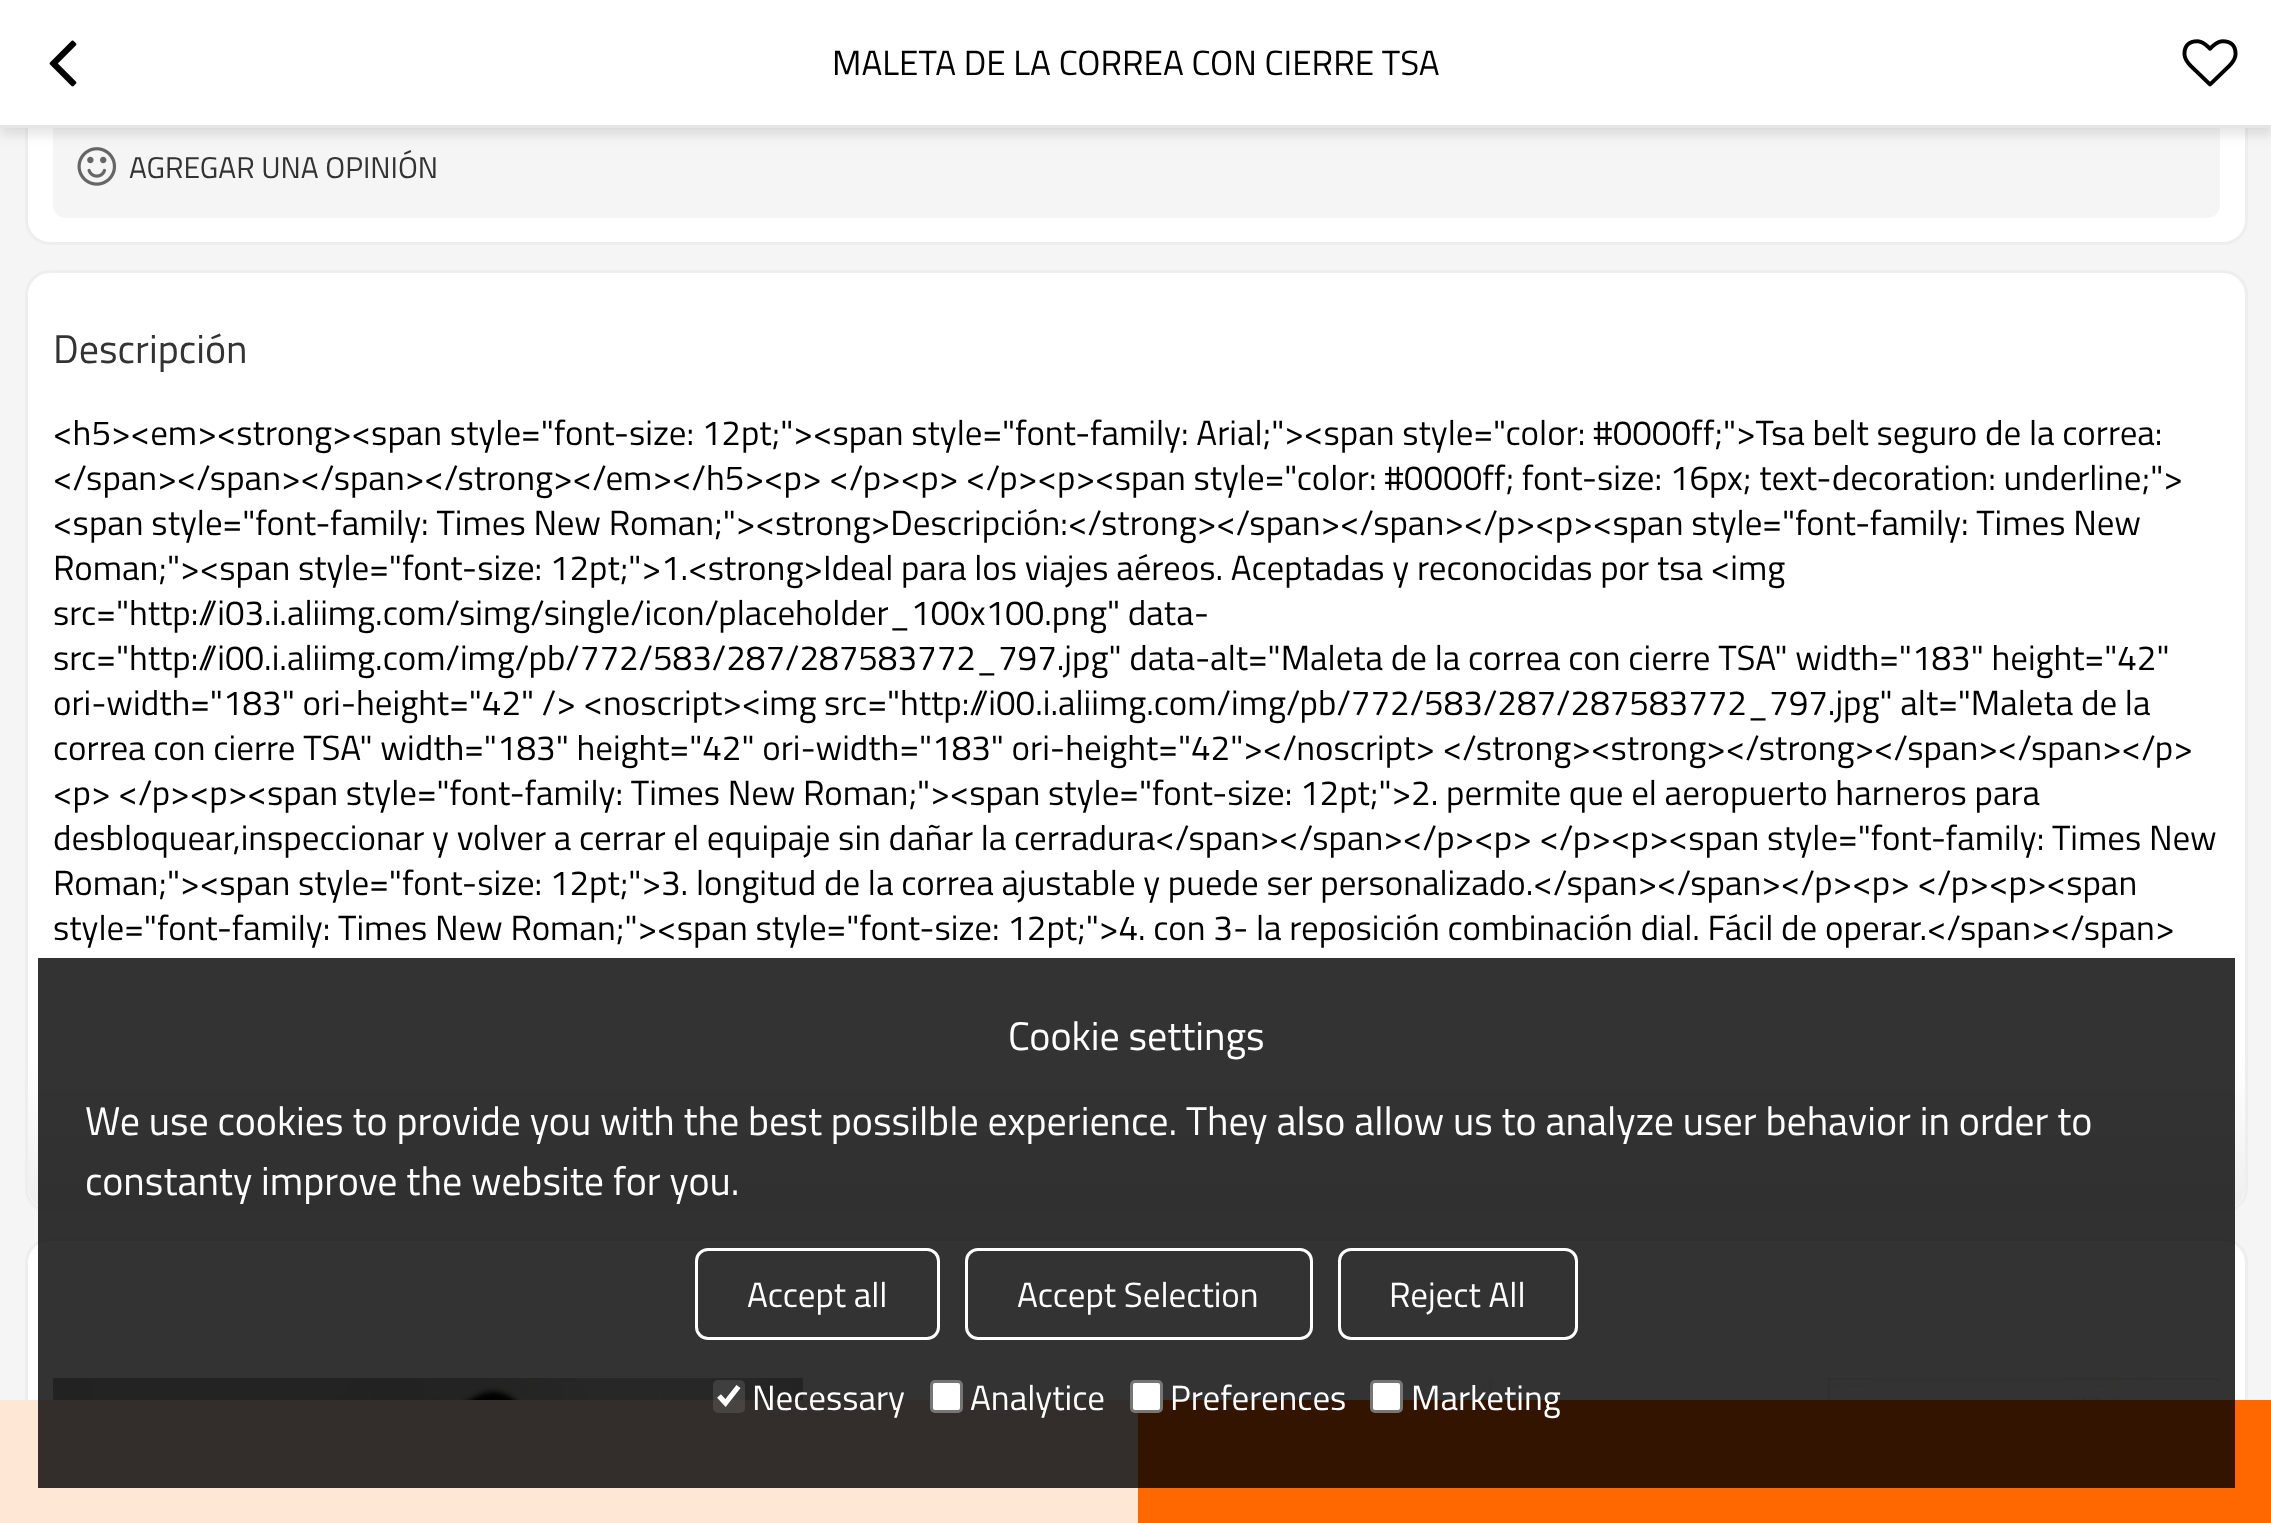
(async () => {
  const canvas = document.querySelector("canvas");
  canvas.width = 2271;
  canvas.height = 1523;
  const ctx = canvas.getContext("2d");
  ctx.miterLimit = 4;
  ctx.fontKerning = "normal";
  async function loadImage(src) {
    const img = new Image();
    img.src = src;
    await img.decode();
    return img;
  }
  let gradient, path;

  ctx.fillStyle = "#f5f5f5";
  ctx.fillRect(0, 0, 2271, 1523);
  ctx.fillStyle = "#ffffff";
  ctx.beginPath();
  ctx.roundRect(26.5, -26.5, 2220, 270, 23.5);
  ctx.fill();
  ctx.strokeStyle = "#eeeeee";
  ctx.lineWidth = 3;
  ctx.stroke();
  ctx.fillStyle = "#f5f5f5";
  ctx.beginPath();
  ctx.roundRect(53, 118, 2167, 100, 13);
  ctx.fill();
  ctx.drawImage(await loadImage("img/3.png"), 77, 147, 40, 39);
  ctx.fillStyle = "rgba(0, 0, 0, 0.1)";
  ctx.filter = "blur(6px)";
  ctx.beginPath();
  ctx.rect(0, 8, 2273, 127);
  ctx.fill();
  ctx.filter = "none";
  ctx.fillStyle = "#ffffff";
  ctx.fillRect(0, 0, 2271, 125);
  ctx.fillStyle = "#e5e5e5";
  ctx.fillRect(0, 125, 2271, 3);
  ctx.drawImage(await loadImage("img/1.png"), 49, 40, 28, 47);
  ctx.drawImage(await loadImage("img/2.png"), 2182, 39, 56, 48);
  ctx.fillStyle = "#ffffff";
  ctx.beginPath();
  ctx.roundRect(26.5, 271.5, 2220, 940, 23.5);
  ctx.fill();
  ctx.stroke();
  gradient = ctx.createLinearGradient(1136, 1060, 1136, 1210);
  gradient.addColorStop(0, "rgba(238, 238, 238, 0)");
  gradient.addColorStop(1, "#eeeeee");
  ctx.fillStyle = gradient;
  ctx.beginPath();
  ctx.roundRect(28, 1060, 2217, 150, [0, 0, 23, 23]);
  ctx.fill();
  ctx.fillStyle = "#ffffff";
  ctx.beginPath();
  ctx.roundRect(26.5, 1239.5, 2220, 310, 23.5);
  ctx.fill();
  ctx.stroke();
  ctx.drawImage(await loadImage("img/4.png"), 53, 1378, 750, 22);
  ctx.drawImage(await loadImage("img/5.png"), 959, 1378, 534, 22);
  ctx.drawImage(await loadImage("img/6.png"), 1827, 1378, 393, 22);
  for (const [x, y, w, h, color] of [
    [0, 1400, 1138, 123, "#ffe7d6"],
    [1138, 1400, 1133, 123, "#ff6700"],
    [38, 958, 2197, 530, "rgba(0, 0, 0, 0.8)"],
  ]) {
    ctx.fillStyle = color;
    ctx.fillRect(x, y, w, h);
  }
  ctx.beginPath();
  ctx.roundRect(696.5, 1249.5, 242, 89, 11.5);
  ctx.strokeStyle = "#ffffff";
  ctx.stroke();
  ctx.beginPath();
  ctx.roundRect(966.5, 1249.5, 345, 89, 11.5);
  ctx.stroke();
  ctx.beginPath();
  ctx.roundRect(1339.5, 1249.5, 237, 89, 11.5);
  ctx.stroke();
  ctx.fillStyle = "rgba(118, 118, 118, 0.3)";
  ctx.beginPath();
  ctx.roundRect(713, 1380, 32, 33, 5);
  ctx.fill();
  path = new Path2D("M719 1396L725.5 1403L738.5 1386.5");
  ctx.lineWidth = 5.2;
  ctx.stroke(path);
  ctx.fillStyle = "#ffffff";
  ctx.beginPath();
  ctx.roundRect(931.5, 1381.5, 30, 30, 3.5);
  ctx.fill();
  ctx.strokeStyle = "#767676";
  ctx.lineWidth = 3;
  ctx.stroke();
  ctx.beginPath();
  ctx.roundRect(1131.5, 1381.5, 30, 30, 3.5);
  ctx.fill();
  ctx.stroke();
  ctx.beginPath();
  ctx.roundRect(1371.5, 1381.5, 30, 30, 3.5);
  ctx.fill();
  ctx.stroke();
  ctx.font = "35px Titillium Web";
  ctx.fillStyle = "#000000";
  ctx.fillText("MALETA DE LA CORREA CON CIERRE TSA", 832, 75);
  ctx.font = "30px Titillium Web";
  ctx.fillStyle = "#333333";
  ctx.fillText("AGREGAR UNA OPINIÓN", 129, 178);
  ctx.font = "40px Titillium Web";
  ctx.fillText("Descripción", 53, 363);
  ctx.font = "35px Titillium Web";
  ctx.fillStyle = "#000000";
  for (const [text, x, y] of [
    ["<h5><em><strong><span style=\"font-size: 12pt;\"><span style=\"font-family: Arial;\"><span style=\"color: #0000ff;\">Tsa belt seguro de la correa:", 53, 445],
    ["<\/span><\/span><\/span><\/strong><\/em><\/h5><p> <\/p><p> <\/p><p><span style=\"color: #0000ff; font-size: 16px; text-decoration: underline;\">", 53, 490],
    ["<span style=\"font-family: Times New Roman;\"><strong>Descripción:<\/strong><\/span><\/span><\/p><p><span style=\"font-family: Times New", 53, 535],
    ["Roman;\"><span style=\"font-size: 12pt;\">1.<strong>Ideal para los viajes aéreos. Aceptadas y reconocidas por tsa <img", 53, 580],
    ["src=\"http://i03.i.aliimg.com/simg/single/icon/placeholder_100x100.png\" data-", 53, 625],
    ["src=\"http://i00.i.aliimg.com/img/pb/772/583/287/287583772_797.jpg\" data-alt=\"Maleta de la correa con cierre TSA\" width=\"183\" height=\"42\"", 53, 670],
    ["ori-width=\"183\" ori-height=\"42\" /> <noscript><img src=\"http://i00.i.aliimg.com/img/pb/772/583/287/287583772_797.jpg\" alt=\"Maleta de la", 53, 715],
    ["correa con cierre TSA\" width=\"183\" height=\"42\" ori-width=\"183\" ori-height=\"42\"><\/noscript> <\/strong><strong><\/strong><\/span><\/span><\/p>", 53, 760],
    ["<p> <\/p><p><span style=\"font-family: Times New Roman;\"><span style=\"font-size: 12pt;\">2. permite que el aeropuerto harneros para", 53, 805],
    ["desbloquear,inspeccionar y volver a cerrar el equipaje sin dañar la cerradura<\/span><\/span><\/p><p> <\/p><p><span style=\"font-family: Times New", 53, 850],
    ["Roman;\"><span style=\"font-size: 12pt;\">3. longitud de la correa ajustable y puede ser personalizado.<\/span><\/span><\/p><p> <\/p><p><span", 53, 895],
    ["style=\"font-family: Times New Roman;\"><span style=\"font-size: 12pt;\">4. con 3- la reposición combinación dial. Fácil de operar.<\/span><\/span>", 53, 940],
  ]) {
    ctx.fillText(text, x, y);
  }
  ctx.font = "40px Titillium Web";
  ctx.fillStyle = "#ffffff";
  for (const [text, x, y] of [
    ["Cookie settings", 1008, 1050],
    ["We use cookies to provide you with the best possilble experience. They also allow us to analyze user behavior in order to", 85, 1135],
    ["constanty improve the website for you.", 85, 1195],
  ]) {
    ctx.fillText(text, x, y);
  }
  ctx.font = "35px Titillium Web";
  for (const [text, x, y] of [
    ["Accept all", 747, 1307],
    ["Accept Selection", 1017, 1307],
    ["Reject All", 1389, 1307],
    ["Necessary", 752, 1410],
    ["Analytice", 970, 1410],
    ["Preferences", 1170, 1410],
    ["Marketing", 1411, 1410],
  ]) {
    ctx.fillText(text, x, y);
  }
})();
